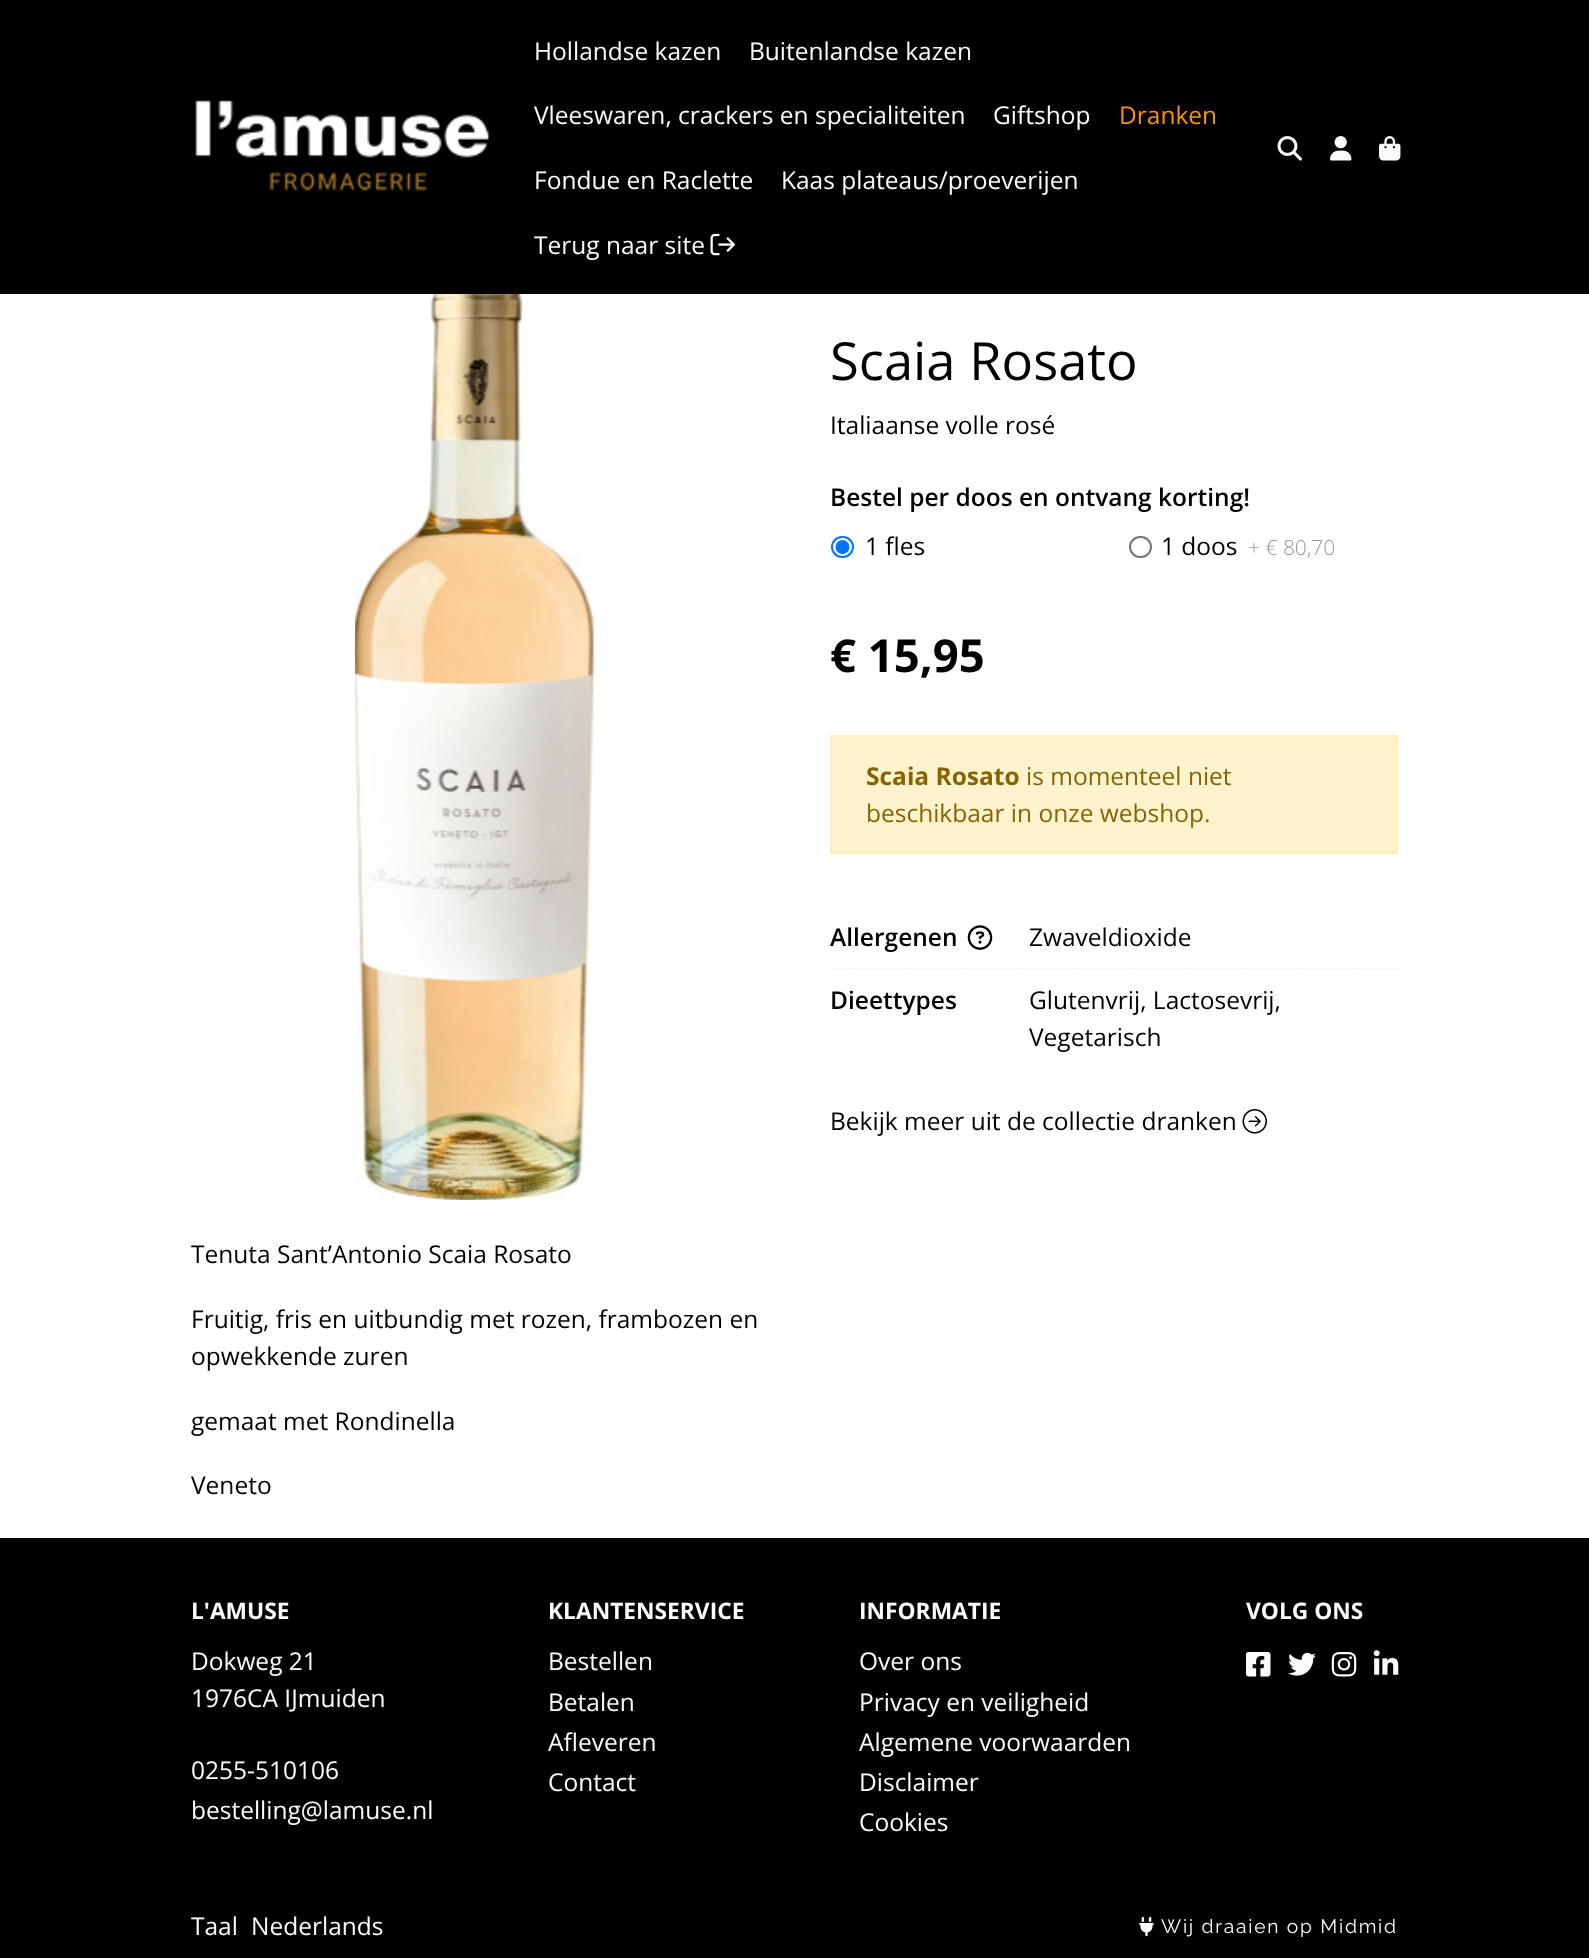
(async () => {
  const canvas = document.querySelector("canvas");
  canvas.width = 1589;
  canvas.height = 1958;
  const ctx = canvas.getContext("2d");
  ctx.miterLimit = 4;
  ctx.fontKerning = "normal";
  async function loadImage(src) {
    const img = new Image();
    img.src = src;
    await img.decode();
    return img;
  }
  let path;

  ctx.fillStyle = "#ffffff";
  ctx.fillRect(0, 0, 1589, 1958);
  ctx.fillStyle = "#000000";
  ctx.fillRect(0, 0, 1589, 294);
  ctx.drawImage(await loadImage("img/1.png"), 195, 100, 294, 91);
  ctx.drawImage(await loadImage("img/2.png"), 710, 233, 25, 23);
  ctx.drawImage(await loadImage("img/3.png"), 1277, 136, 25, 25);
  ctx.drawImage(await loadImage("img/4.png"), 1330, 136, 22, 25);
  ctx.drawImage(await loadImage("img/5.png"), 1379, 136, 22, 25);
  ctx.beginPath();
  ctx.roundRect(832, 537, 21, 20, 10);
  ctx.strokeStyle = "#0075ff";
  ctx.lineWidth = 2;
  ctx.stroke();
  ctx.fillStyle = "#0075ff";
  ctx.beginPath();
  ctx.arc(842.5, 547, 7, 0, Math.PI * 2);
  ctx.fill();
  ctx.beginPath();
  ctx.roundRect(1130, 537, 21, 20, 10);
  ctx.strokeStyle = "#767676";
  ctx.stroke();
  ctx.fillStyle = "#fff3cd";
  ctx.beginPath();
  ctx.rect(831, 736, 566, 117);
  ctx.fill();
  ctx.strokeStyle = "#ffeeba";
  ctx.stroke();
  path = new Path2D("M829.5 968.5H1398");
  ctx.strokeStyle = "#eceff0";
  ctx.lineWidth = 1.8;
  ctx.setLineDash([1.75, 1.75]);
  ctx.stroke(path);
  ctx.drawImage(await loadImage("img/6.png"), 967, 925, 26, 25);
  ctx.drawImage(await loadImage("img/7.png"), 1242, 1109, 25, 25);
  ctx.drawImage(await loadImage("img/8.png"), 355, 294, 240, 906);
  ctx.fillStyle = "#000000";
  ctx.fillRect(0, 1538, 1589, 420);
  ctx.drawImage(await loadImage("img/9.png"), 1246, 1652, 25, 25);
  ctx.drawImage(await loadImage("img/10.png"), 1288, 1652, 28, 24);
  ctx.drawImage(await loadImage("img/11.png"), 1331, 1652, 26, 25);
  ctx.drawImage(await loadImage("img/12.png"), 1373, 1650, 26, 25);
  ctx.drawImage(await loadImage("img/13.png"), 1139, 1916, 15, 21);
  ctx.font = "24.5px Open Sans";
  ctx.fillStyle = "#fbfbfb";
  for (const [text, x, y] of [
    ["Hollandse kazen", 534, 60],
    ["Buitenlandse kazen", 749, 60],
    ["Vleeswaren, crackers en specialiteiten", 534, 124],
    ["Giftshop", 993, 124],
  ]) {
    ctx.fillText(text, x, y);
  }
  ctx.fillStyle = "#f89406";
  ctx.fillText("Dranken", 1119, 124);
  ctx.fillStyle = "#fbfbfb";
  for (const [text, x, y] of [
    ["Fondue en Raclette", 534, 189],
    ["Kaas plateaus/proeverijen", 781, 189],
    ["Terug naar site", 534, 254],
  ]) {
    ctx.fillText(text, x, y);
  }
  ctx.font = "52.5px Open Sans";
  ctx.fillStyle = "#000000";
  ctx.fillText("Scaia Rosato", 830, 380);
  ctx.font = "24.5px Open Sans";
  ctx.fillText("Italiaanse volle rosé", 830, 434);
  ctx.font = "600 24.5px Open Sans";
  ctx.fillText("Bestel per doos en ontvang korting!", 830, 506);
  ctx.font = "24.5px Open Sans";
  ctx.fillText("1 fles", 865, 555);
  ctx.fillText("1 doos", 1161, 555);
  ctx.font = "300 21px Open Sans";
  ctx.fillStyle = "#999999";
  ctx.fillText("+ € 80,70", 1248, 555);
  ctx.font = "bold 45.5px Open Sans";
  ctx.fillStyle = "#000000";
  ctx.fillText("€ 15,95", 830, 672);
  ctx.font = "bold 24.5px Open Sans";
  ctx.fillStyle = "#856404";
  ctx.fillText("Scaia Rosato", 866, 785);
  ctx.font = "24.5px Open Sans";
  ctx.fillText("is momenteel niet", 1026, 785);
  ctx.fillText("beschikbaar in onze webshop.", 866, 822);
  ctx.font = "600 24.5px Open Sans";
  ctx.fillStyle = "#000000";
  ctx.fillText("Allergenen", 830, 946);
  ctx.font = "24.5px Open Sans";
  ctx.fillText("Zwaveldioxide", 1029, 946);
  ctx.font = "600 24.5px Open Sans";
  ctx.fillText("Dieettypes", 830, 1009);
  ctx.font = "24.5px Open Sans";
  for (const [text, x, y] of [
    ["Glutenvrij, Lactosevrij,", 1029, 1009],
    ["Vegetarisch", 1029, 1046],
    ["Bekijk meer uit de collectie dranken", 830, 1130],
    ["Tenuta Sant’Antonio Scaia Rosato", 191, 1263],
    ["Fruitig, fris en uitbundig met rozen, frambozen en", 191, 1328],
    ["opwekkende zuren", 191, 1365],
    ["gemaat met Rondinella", 191, 1430],
    ["Veneto", 191, 1494],
  ]) {
    ctx.fillText(text, x, y);
  }
  ctx.font = "bold 22.75px Open Sans";
  ctx.fillStyle = "#fbfbfb";
  ctx.fillText("L'AMUSE", 191, 1619);
  ctx.font = "24.5px Open Sans";
  for (const [text, x, y] of [
    ["Dokweg 21", 191, 1670],
    ["1976CA IJmuiden", 191, 1707],
    ["0255-510106", 191, 1779],
    ["bestelling@lamuse.nl", 191, 1819],
  ]) {
    ctx.fillText(text, x, y);
  }
  ctx.font = "bold 22.75px Open Sans";
  ctx.fillText("KLANTENSERVICE", 548, 1619);
  ctx.font = "24.5px Open Sans";
  for (const [text, x, y] of [
    ["Bestellen", 548, 1670],
    ["Betalen", 548, 1711],
    ["Afleveren", 548, 1751],
    ["Contact", 548, 1791],
  ]) {
    ctx.fillText(text, x, y);
  }
  ctx.font = "bold 22.75px Open Sans";
  ctx.fillText("INFORMATIE", 859, 1619);
  ctx.font = "24.5px Open Sans";
  for (const [text, x, y] of [
    ["Over ons", 859, 1670],
    ["Privacy en veiligheid", 859, 1711],
    ["Algemene voorwaarden", 859, 1751],
    ["Disclaimer", 859, 1791],
    ["Cookies", 859, 1831],
  ]) {
    ctx.fillText(text, x, y);
  }
  ctx.font = "bold 22.75px Open Sans";
  ctx.fillText("VOLG ONS", 1246, 1619);
  ctx.font = "24.5px Open Sans";
  ctx.fillText("Taal", 191, 1935);
  ctx.fillText("Nederlands", 251, 1935);
  ctx.letterSpacing = "1.75px";
  ctx.font = "19.25px Raleway";
  ctx.fillText("Wij draaien op Midmid", 1161, 1933);
})();
